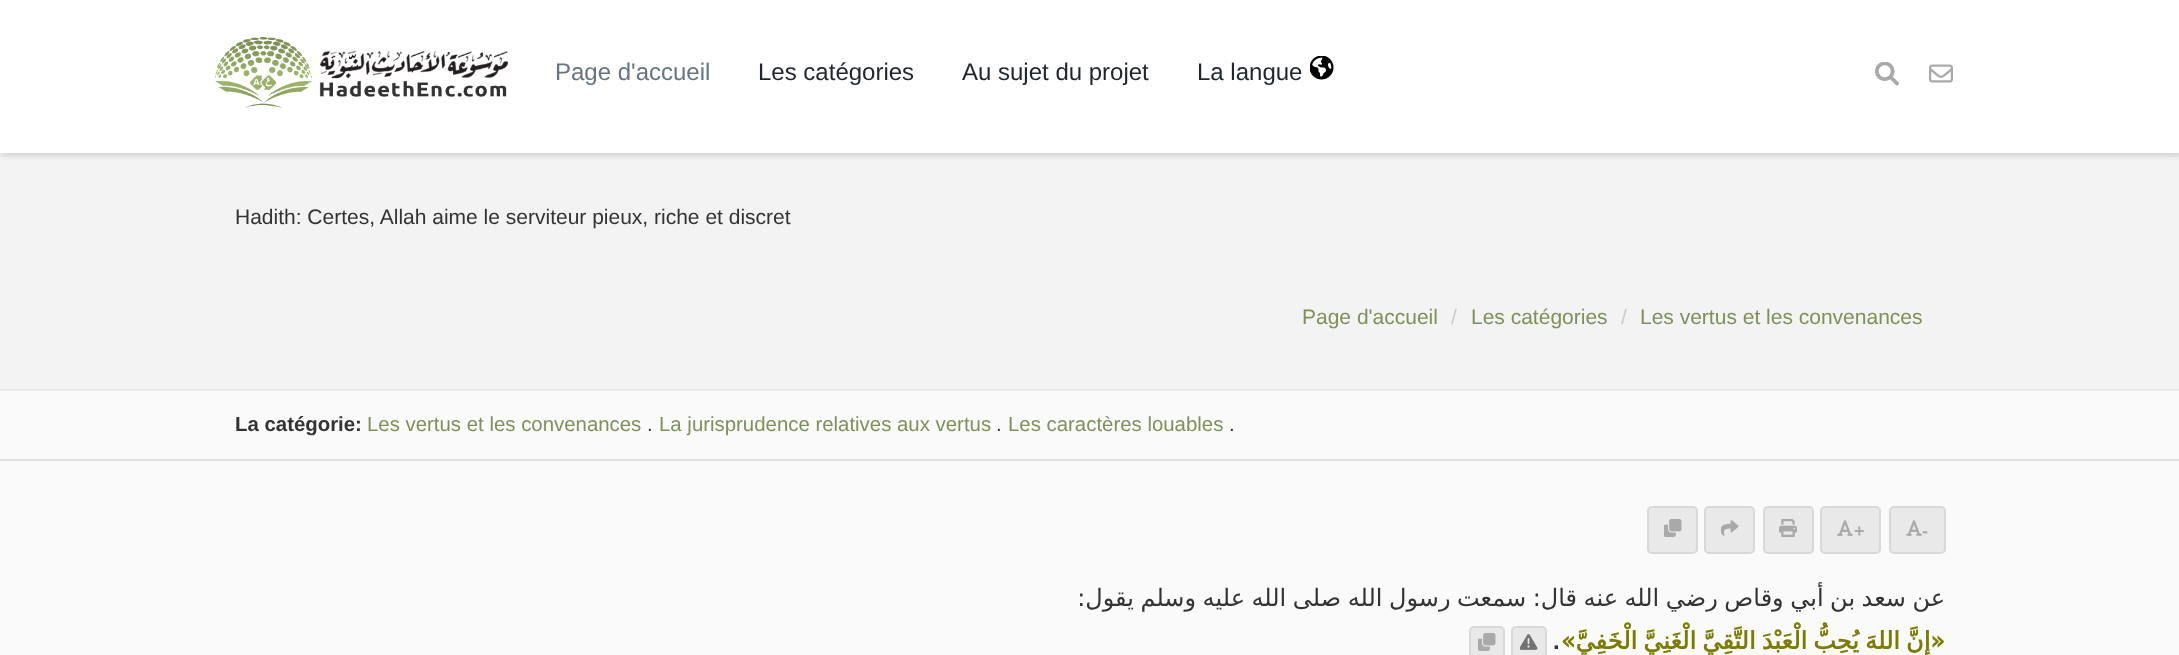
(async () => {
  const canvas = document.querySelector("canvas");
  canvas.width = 2179;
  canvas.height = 655;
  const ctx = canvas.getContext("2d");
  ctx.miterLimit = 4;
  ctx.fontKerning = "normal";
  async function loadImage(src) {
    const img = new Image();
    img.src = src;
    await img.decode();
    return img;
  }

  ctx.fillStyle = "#fafafa";
  ctx.fillRect(0, 0, 2179, 655);
  ctx.fillStyle = "#ededed";
  ctx.fillRect(0, 390, 2179, 1);
  ctx.fillStyle = "#f3f3f3";
  ctx.fillRect(0, 155, 2179, 234);
  ctx.fillStyle = "rgba(0, 0, 0, 0.1)";
  ctx.filter = "blur(1.5px)";
  ctx.beginPath();
  ctx.rect(0, 0, 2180, 155);
  ctx.fill();
  ctx.filter = "none";
  ctx.fillStyle = "#ffffff";
  ctx.fillRect(0, 0, 2179, 153);
  ctx.fillStyle = "#f2f2f2";
  ctx.fillRect(0, 153, 2179, 2);
  ctx.save();
  ctx.beginPath();
  ctx.rect(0, 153, 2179, 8);
  ctx.clip();
  ctx.fillStyle = "#cccccc";
  ctx.filter = "blur(3px)";
  ctx.beginPath();
  ctx.rect(2, 2, 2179, 153);
  ctx.fill();
  ctx.filter = "none";
  ctx.restore();
  ctx.drawImage(await loadImage("img/1.png"), 215, 37, 293, 71);
  ctx.drawImage(await loadImage("img/2.png"), 1310, 56, 24, 24);
  ctx.drawImage(await loadImage("img/3.png"), 1875, 62, 24, 24);
  ctx.drawImage(await loadImage("img/4.png"), 1929, 64, 24, 19);
  ctx.fillStyle = "#e7e7e7";
  ctx.fillRect(0, 389, 2179, 1);
  ctx.fillStyle = "#e1e1e1";
  ctx.fillRect(0, 459, 2179, 2);
  ctx.fillStyle = "#e9e9e9";
  ctx.beginPath();
  ctx.roundRect(1647, 506, 51, 48, 5);
  ctx.fill();
  ctx.beginPath();
  ctx.roundRect(1648, 507, 49, 46, 4);
  ctx.strokeStyle = "rgba(0, 0, 0, 0.07)";
  ctx.lineWidth = 2;
  ctx.stroke();
  ctx.drawImage(await loadImage("img/5.png"), 1664, 519, 18, 18);
  ctx.beginPath();
  ctx.roundRect(1704, 506, 51, 48, 5);
  ctx.fill();
  ctx.beginPath();
  ctx.roundRect(1705, 507, 49, 46, 4);
  ctx.stroke();
  ctx.drawImage(await loadImage("img/6.png"), 1721, 520, 18, 16);
  ctx.beginPath();
  ctx.roundRect(1763, 506, 51, 48, 5);
  ctx.fill();
  ctx.beginPath();
  ctx.roundRect(1764, 507, 49, 46, 4);
  ctx.stroke();
  ctx.drawImage(await loadImage("img/7.png"), 1779, 519, 18, 18);
  ctx.beginPath();
  ctx.roundRect(1820, 506, 61, 48, 5);
  ctx.fill();
  ctx.beginPath();
  ctx.roundRect(1821, 507, 59, 46, 4);
  ctx.stroke();
  ctx.drawImage(await loadImage("img/8.png"), 1837, 520, 16, 16);
  ctx.beginPath();
  ctx.roundRect(1889, 506, 57, 48, 5);
  ctx.fill();
  ctx.beginPath();
  ctx.roundRect(1890, 507, 55, 46, 4);
  ctx.stroke();
  ctx.drawImage(await loadImage("img/8.png"), 1906, 520, 16, 16);
  ctx.beginPath();
  ctx.roundRect(1469, 626, 36, 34, 5);
  ctx.fill();
  ctx.beginPath();
  ctx.roundRect(1470, 627, 34, 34, 4);
  ctx.stroke();
  ctx.drawImage(await loadImage("img/5.png"), 1478, 633, 18, 18);
  ctx.beginPath();
  ctx.roundRect(1511, 626, 36, 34, 5);
  ctx.fill();
  ctx.beginPath();
  ctx.roundRect(1512, 627, 34, 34, 4);
  ctx.stroke();
  ctx.drawImage(await loadImage("img/9.png"), 1520, 634, 18, 16);
  ctx.font = "24px Liberation Sans";
  ctx.fillStyle = "#687482";
  ctx.fillText("Page d'accueil", 555, 80);
  ctx.fillStyle = "#1f262d";
  for (const [text, x, y] of [
    ["Les catégories", 758, 80],
    ["Au sujet du projet", 962, 80],
    ["La langue", 1197, 80],
  ]) {
    ctx.fillText(text, x, y);
  }
  ctx.font = "21px Liberation Sans";
  ctx.fillStyle = "#333333";
  ctx.fillText("Hadith: Certes, Allah aime le serviteur pieux, riche et discret", 235, 224);
  ctx.fillStyle = "#7f9059";
  ctx.fillText("Page d'accueil", 1302, 324);
  ctx.fillStyle = "#cccccc";
  ctx.fillText("/", 1451, 324);
  ctx.fillStyle = "#7f9059";
  ctx.fillText("Les catégories", 1471, 324);
  ctx.fillStyle = "#cccccc";
  ctx.fillText("/", 1621, 324);
  ctx.fillStyle = "#7f9059";
  ctx.fillText("Les vertus et les convenances", 1640, 324);
  ctx.font = "bold 20.4px Liberation Sans";
  ctx.fillStyle = "#333333";
  ctx.fillText("La catégorie:", 235, 431);
  ctx.font = "20.4px Liberation Sans";
  ctx.fillStyle = "#7f9059";
  ctx.fillText("Les vertus et les convenances", 367, 431);
  ctx.fillStyle = "#333333";
  ctx.fillText(".", 647, 431);
  ctx.fillStyle = "#7f9059";
  ctx.fillText("La jurisprudence relatives aux vertus", 659, 431);
  ctx.fillStyle = "#333333";
  ctx.fillText(".", 996, 431);
  ctx.fillStyle = "#7f9059";
  ctx.fillText("Les caractères louables", 1008, 431);
  ctx.fillStyle = "#333333";
  ctx.fillText(".", 1229, 431);
  ctx.font = "bold 18px Liberation Sans";
  ctx.fillStyle = "#aaaaaa";
  ctx.fillText("+", 1854, 537);
  ctx.fillText("-", 1922, 537);
  ctx.wordSpacing = "-1.1px";
  ctx.direction = "rtl";
  ctx.font = "24px DejaVu Sans";
  ctx.fillStyle = "#333333";
  ctx.fillText("عن سعد بن أبي وقاص رضي الله عنه قال: سمعت رسول الله صلى الله عليه وسلم يقول:", 1945, 606);
  ctx.wordSpacing = "0px";
  ctx.direction = "ltr";
  ctx.font = "bold 24px Liberation Sans";
  ctx.fillText(".", 1553, 649);
  ctx.wordSpacing = "-1.5px";
  ctx.direction = "rtl";
  ctx.font = "bold 24px DejaVu Sans";
  ctx.fillStyle = "#7c7c02";
  ctx.fillText("«إِنَّ اللهَ يُحِبُّ الْعَبْدَ التَّقِيَّ الْغَنِيَّ الْخَفِيَّ»", 1945, 649);
})();
